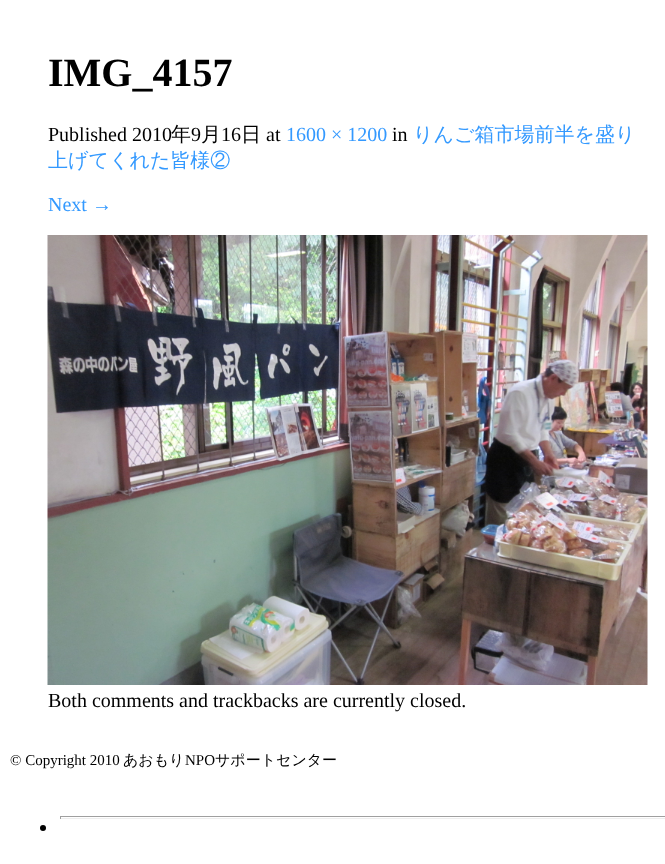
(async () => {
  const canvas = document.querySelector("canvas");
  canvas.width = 665;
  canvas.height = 864;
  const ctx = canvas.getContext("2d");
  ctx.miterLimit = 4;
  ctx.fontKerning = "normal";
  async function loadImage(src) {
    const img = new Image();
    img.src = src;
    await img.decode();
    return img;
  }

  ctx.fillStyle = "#ffffff";
  ctx.fillRect(0, 0, 665, 864);
  ctx.drawImage(await loadImage("img/1.png"), 47, 235, 601, 450);
  for (const [x, y, w, h, color] of [
    [60, 816, 605, 1, "#9f9f9f"],
    [60, 818, 605, 1, "#eeeeee"],
    [60, 816, 1, 3, "#9f9f9f"],
  ]) {
    ctx.fillStyle = color;
    ctx.fillRect(x, y, w, h);
  }
  ctx.fillStyle = "#000000";
  ctx.beginPath();
  ctx.arc(43, 828, 3, 0, Math.PI * 2);
  ctx.fill();
  ctx.font = "bold 40px Liberation Serif";
  ctx.fillText("IMG_4157", 48, 86);
  ctx.font = "20px Liberation Serif";
  ctx.fillText("Published 2010", 48, 141);
  ctx.font = "500 20px WenQuanYi Zen Hei";
  ctx.fillText("年", 171, 141);
  ctx.font = "20px Liberation Serif";
  ctx.fillText("9", 191, 141);
  ctx.font = "500 20px WenQuanYi Zen Hei";
  ctx.fillText("月", 201, 141);
  ctx.font = "20px Liberation Serif";
  ctx.fillText("16", 221, 141);
  ctx.font = "500 20px WenQuanYi Zen Hei";
  ctx.fillText("日", 241, 141);
  ctx.font = "20px Liberation Serif";
  ctx.fillText("at", 266, 141);
  ctx.fillStyle = "#3399ff";
  ctx.fillText("1600 × 1200", 286, 141);
  ctx.fillStyle = "#000000";
  ctx.fillText("in", 392, 141);
  ctx.font = "500 20px WenQuanYi Zen Hei";
  ctx.fillStyle = "#3399ff";
  ctx.fillText("りんご箱市場前半を盛り", 413, 141);
  ctx.fillText("上げてくれた皆様②", 48, 167);
  ctx.font = "20px Liberation Serif";
  ctx.fillText("Next →", 48, 211);
  ctx.fillStyle = "#000000";
  ctx.fillText("Both comments and trackbacks are currently closed.", 48, 707);
  ctx.font = "15px Liberation Serif";
  ctx.fillText("© Copyright 2010", 10, 765);
  ctx.font = "500 15px WenQuanYi Zen Hei";
  ctx.fillText("あおもり", 123, 765);
  ctx.font = "15px Liberation Serif";
  ctx.fillText("NPO", 185, 765);
  ctx.font = "500 15px WenQuanYi Zen Hei";
  ctx.fillText("サポートセンター", 215, 765);
})();
